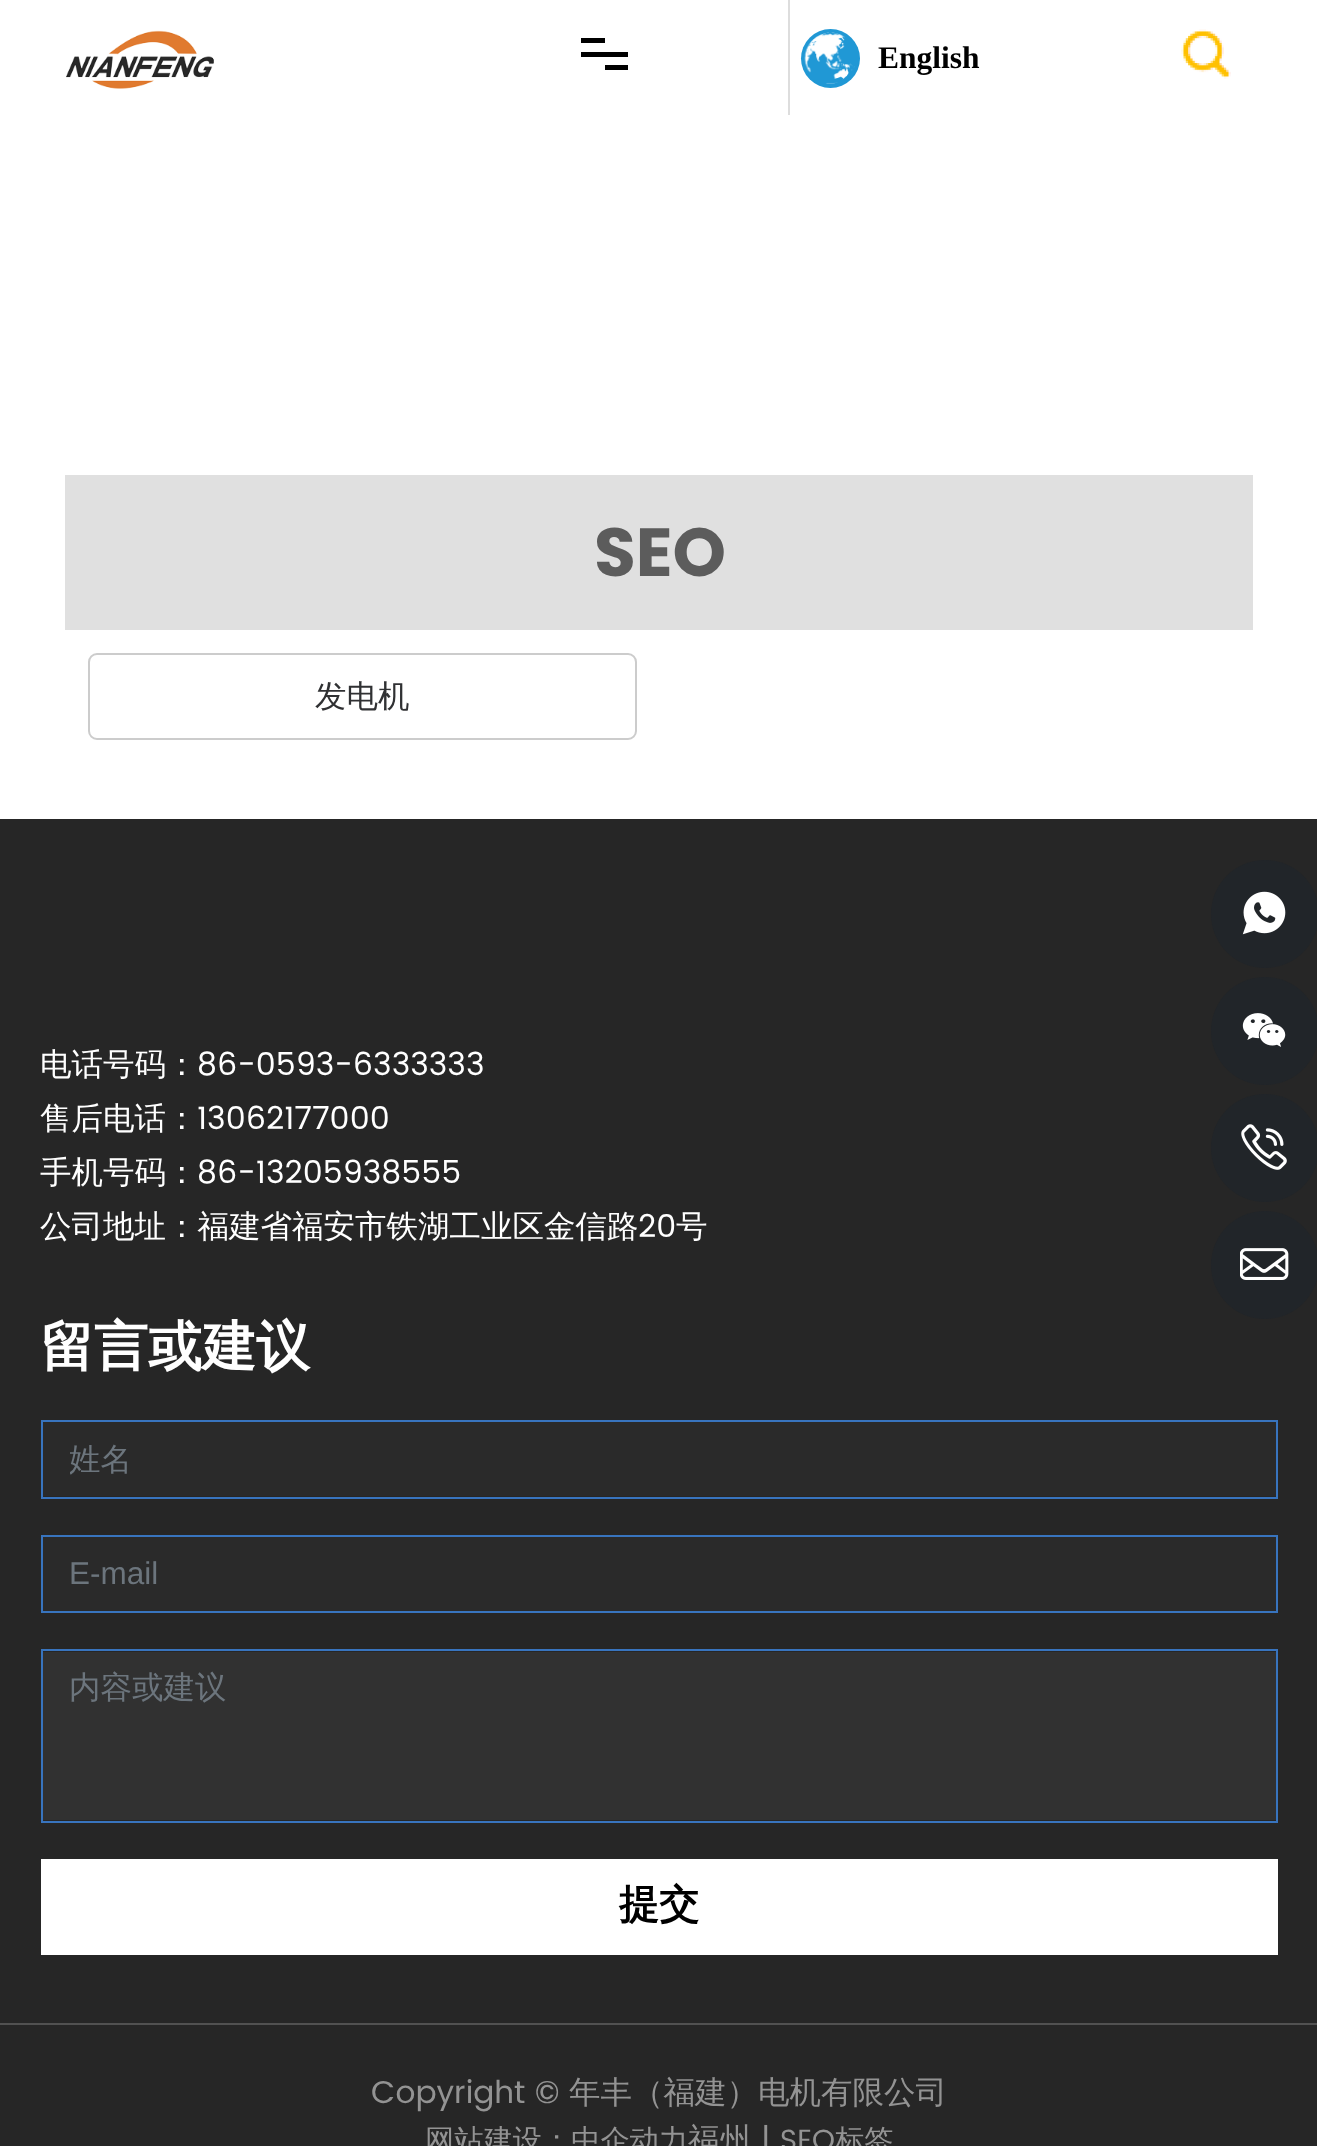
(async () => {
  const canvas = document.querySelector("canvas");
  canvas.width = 1317;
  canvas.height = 2146;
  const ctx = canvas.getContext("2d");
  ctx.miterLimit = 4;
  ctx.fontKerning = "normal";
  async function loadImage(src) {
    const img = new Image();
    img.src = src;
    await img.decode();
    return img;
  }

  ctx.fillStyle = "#ffffff";
  ctx.fillRect(0, 0, 1317, 2146);
  ctx.drawImage(await loadImage("img/1.png"), 66, 30, 148, 59);
  for (const [x, y, w, h, color] of [
    [581, 38, 24, 5, "#000000"],
    [581, 52, 47, 5, "#000000"],
    [605, 65, 23, 5, "#000000"],
    [788, 0, 2, 115, "#dddddd"],
  ]) {
    ctx.fillStyle = color;
    ctx.fillRect(x, y, w, h);
  }
  ctx.fillStyle = "#2098d5";
  ctx.beginPath();
  ctx.arc(830.5, 58.5, 29.5, 0, Math.PI * 2);
  ctx.fill();
  ctx.drawImage(await loadImage("img/2.png"), 804, 32, 51, 52);
  ctx.drawImage(await loadImage("img/3.png"), 1181, 29, 50, 50);
  ctx.fillStyle = "#e0e0e0";
  ctx.fillRect(65, 475, 1188, 155);
  ctx.beginPath();
  ctx.roundRect(89, 654, 547, 85, 8);
  ctx.strokeStyle = "#cccccc";
  ctx.lineWidth = 2;
  ctx.stroke();
  ctx.fillStyle = "#262626";
  ctx.fillRect(0, 819, 1317, 1204);
  ctx.fillStyle = "#212529";
  ctx.beginPath();
  ctx.arc(1265, 914, 54, 0, Math.PI * 2);
  ctx.fill();
  ctx.drawImage(await loadImage("img/4.png"), 1242, 891, 44, 44);
  ctx.beginPath();
  ctx.arc(1265, 1031, 54, 0, Math.PI * 2);
  ctx.fill();
  ctx.drawImage(await loadImage("img/5.png"), 1242, 1013, 44, 34);
  ctx.beginPath();
  ctx.arc(1265, 1148, 54, 0, Math.PI * 2);
  ctx.fill();
  ctx.drawImage(await loadImage("img/6.png"), 1241, 1124, 46, 46);
  ctx.beginPath();
  ctx.arc(1265, 1265, 54, 0, Math.PI * 2);
  ctx.fill();
  ctx.drawImage(await loadImage("img/7.png"), 1240, 1248, 49, 32);
  ctx.fillStyle = "#2a2a2a";
  ctx.fillRect(43, 1422, 1233, 74);
  ctx.strokeStyle = "#3874be";
  ctx.strokeRect(42, 1421, 1235, 77);
  ctx.beginPath();
  ctx.rect(42, 1536, 1235, 76);
  ctx.fill();
  ctx.stroke();
  ctx.fillStyle = "#313131";
  ctx.fillRect(43, 1652, 1233, 168);
  ctx.strokeRect(42, 1650, 1235, 172);
  for (const [x, y, w, h, color] of [
    [41, 1859, 1237, 96, "#ffffff"],
    [0, 2025, 1317, 121, "#262626"],
    [0, 2023, 1317, 2, "#515151"],
  ]) {
    ctx.fillStyle = color;
    ctx.fillRect(x, y, w, h);
  }
  ctx.font = "bold 31.5px Liberation Serif";
  ctx.fillStyle = "#000000";
  ctx.fillText("English", 878, 68);
  ctx.font = "bold 68px Poppins";
  ctx.fillStyle = "#5c5c5c";
  ctx.fillText("SEO", 594, 576);
  ctx.font = "500 31.5px WenQuanYi Zen Hei";
  ctx.fillStyle = "#303133";
  ctx.fillText("发电机", 315, 707);
  ctx.fillStyle = "#ffffff";
  ctx.fillText("电话号码：", 40, 1075);
  ctx.font = "31.5px Poppins";
  ctx.fillText("86-0593-6333333", 197, 1075);
  ctx.font = "500 31.5px WenQuanYi Zen Hei";
  ctx.fillText("售后电话：", 40, 1129);
  ctx.font = "31.5px Poppins";
  ctx.fillText("13062177000", 197, 1129);
  ctx.font = "500 31.5px WenQuanYi Zen Hei";
  ctx.fillText("手机号码：", 40, 1183);
  ctx.font = "31.5px Poppins";
  ctx.fillText("86-13205938555", 197, 1183);
  ctx.font = "500 31.5px WenQuanYi Zen Hei";
  ctx.fillText("公司地址：福建省福安市铁湖工业区金信路", 40, 1237);
  ctx.font = "31.5px Poppins";
  ctx.fillText("20", 638, 1237);
  ctx.font = "500 31.5px WenQuanYi Zen Hei";
  ctx.fillText("号", 676, 1237);
  ctx.font = "bold 54px WenQuanYi Zen Hei";
  ctx.fillText("留言或建议", 40, 1365);
  ctx.save();
  ctx.beginPath();
  ctx.rect(70, 1440, 1179, 41);
  ctx.clip();
  ctx.font = "500 31.5px WenQuanYi Zen Hei";
  ctx.fillStyle = "#6c757d";
  ctx.fillText("姓名", 69, 1470);
  ctx.restore();
  ctx.font = "31.5px Liberation Sans";
  ctx.fillStyle = "#6c757d";
  ctx.fillText("E-mail", 69, 1584);
  ctx.font = "500 31.5px WenQuanYi Zen Hei";
  ctx.fillText("内容或建议", 69, 1698);
  ctx.font = "bold 40px WenQuanYi Zen Hei";
  ctx.fillStyle = "#000000";
  ctx.fillText("提交", 619, 1918);
  ctx.font = "31.5px Poppins";
  ctx.fillStyle = "#939393";
  ctx.fillText("Copyright ©", 371, 2103);
  ctx.font = "500 31.5px WenQuanYi Zen Hei";
  ctx.fillText("年丰（福建）电机有限公司", 569, 2103);
  ctx.font = "500 29.25px WenQuanYi Zen Hei";
  ctx.fillText("网站建设：中企动力", 425, 2150);
  ctx.font = "500 31.5px WenQuanYi Zen Hei";
  ctx.fillText("福州", 688, 2150);
  ctx.font = "31.5px Poppins";
  ctx.fillText("|", 761, 2150);
  ctx.font = "29.25px Poppins";
  ctx.fillText("SEO", 780, 2150);
  ctx.font = "500 29.25px WenQuanYi Zen Hei";
  ctx.fillText("标签", 835, 2150);
})();
